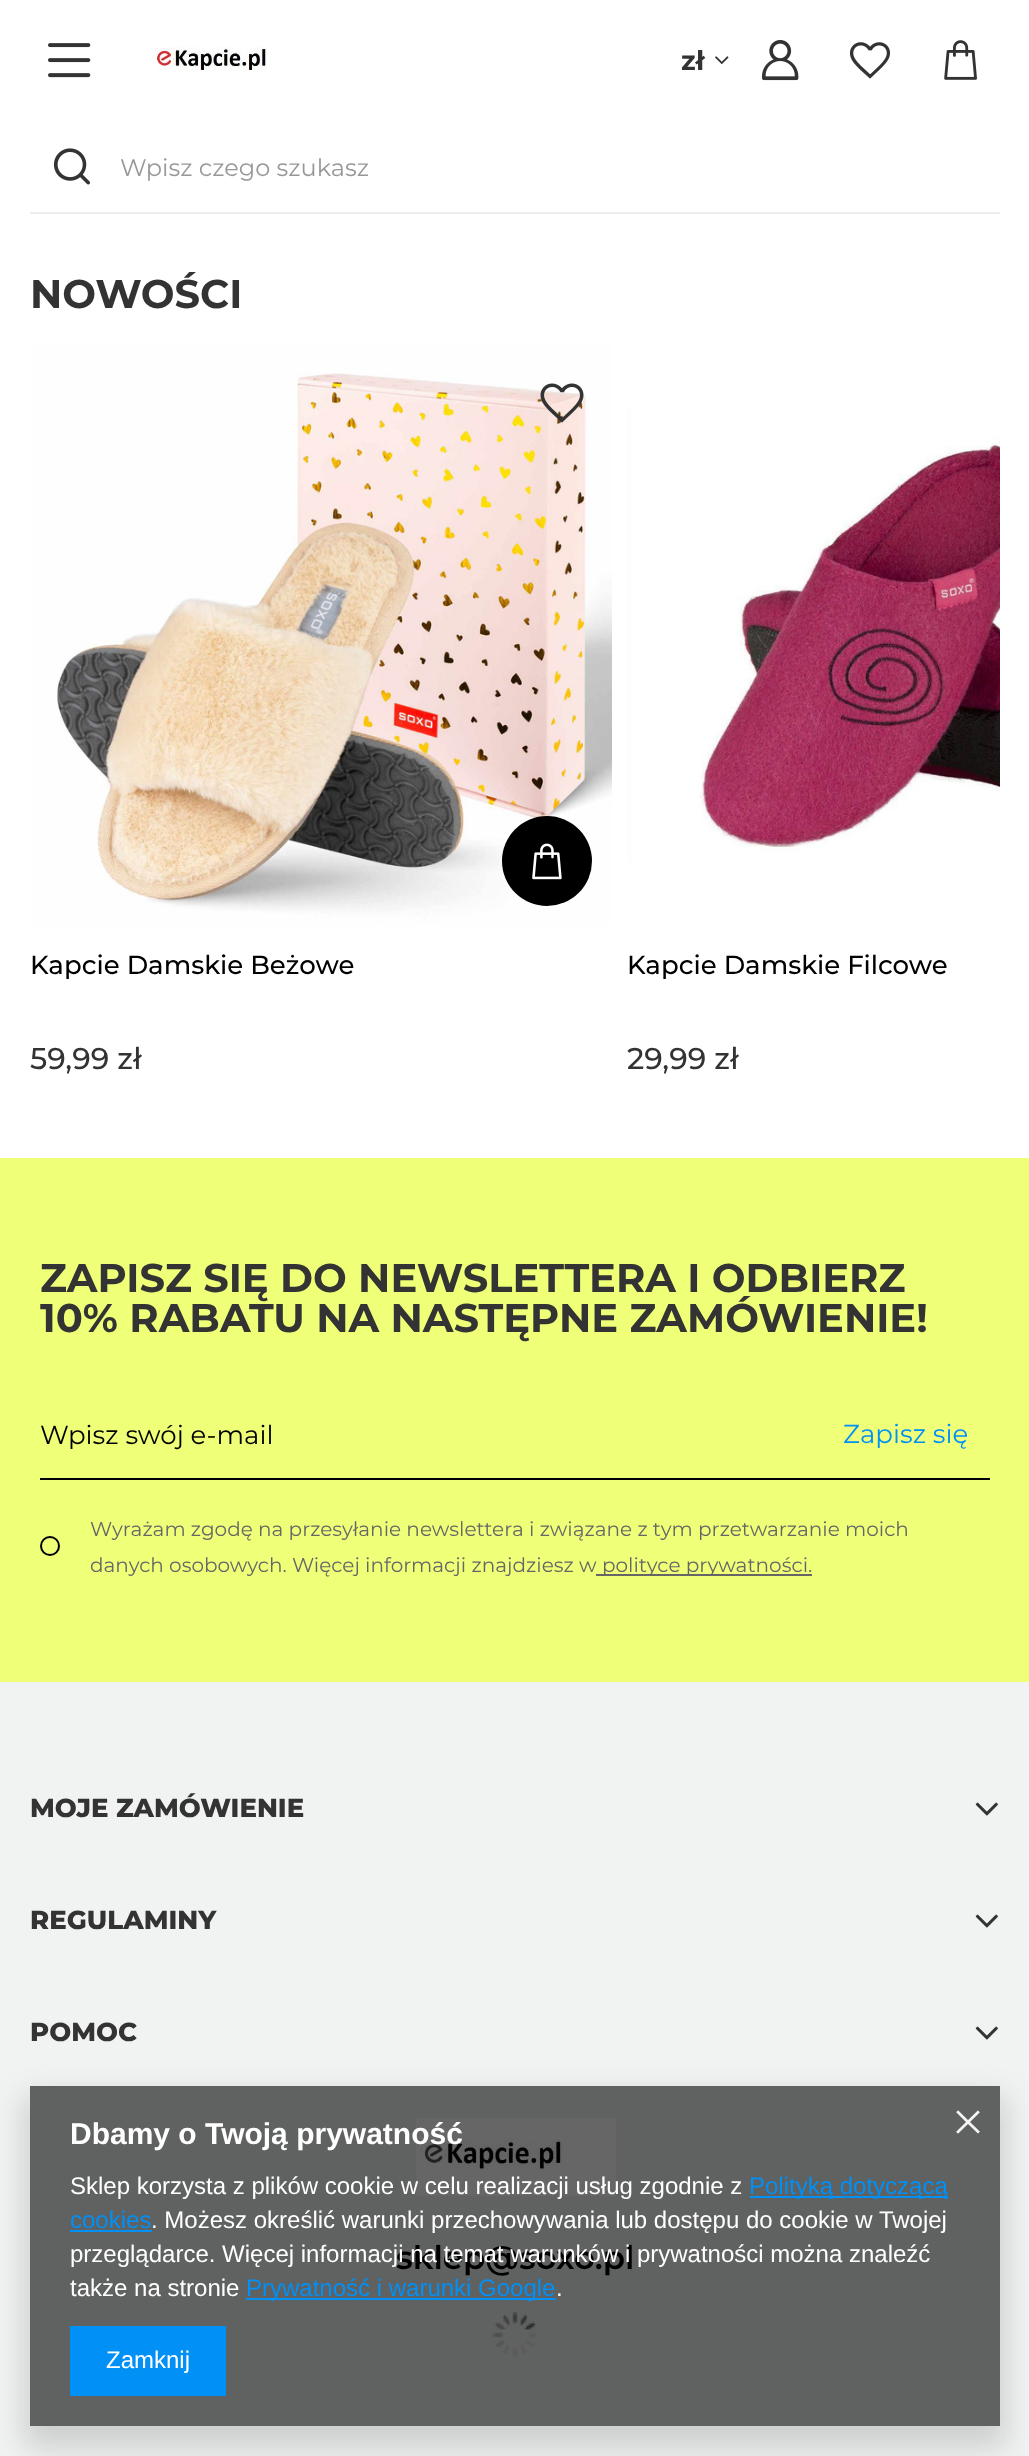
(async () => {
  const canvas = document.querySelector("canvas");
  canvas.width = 1029;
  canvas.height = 2456;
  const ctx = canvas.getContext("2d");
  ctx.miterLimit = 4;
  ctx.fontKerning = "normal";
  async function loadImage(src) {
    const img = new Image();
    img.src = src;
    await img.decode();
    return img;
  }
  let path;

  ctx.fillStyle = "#ffffff";
  ctx.fillRect(0, 0, 1029, 2456);
  ctx.fillStyle = "#ededed";
  ctx.fillRect(30, 212, 970, 2);
  ctx.drawImage(await loadImage("img/1.png"), 48, 43, 43, 35);
  ctx.drawImage(await loadImage("img/2.png"), 150, 46, 117, 25);
  ctx.drawImage(await loadImage("img/3.png"), 715, 56, 14, 9);
  ctx.drawImage(await loadImage("img/4.png"), 762, 40, 37, 41);
  ctx.drawImage(await loadImage("img/5.png"), 850, 42, 40, 37);
  ctx.drawImage(await loadImage("img/6.png"), 944, 40, 33, 40);
  ctx.drawImage(await loadImage("img/7.png"), 53, 148, 37, 37);
  ctx.drawImage(await loadImage("img/8.png"), 30, 344, 582, 582);
  ctx.drawImage(await loadImage("img/9.png"), 540, 383, 44, 40);
  ctx.fillStyle = "#000000";
  ctx.beginPath();
  ctx.arc(547, 861, 45, 0, Math.PI * 2);
  ctx.fill();
  ctx.drawImage(await loadImage("img/10.png"), 532, 843, 30, 37);
  ctx.drawImage(await loadImage("img/11.png"), 628, 344, 372, 582);
  ctx.fillStyle = "#efff78";
  ctx.fillRect(0, 1158, 1029, 524);
  ctx.fillStyle = "#000000";
  ctx.fillRect(40, 1478, 950, 2);
  ctx.beginPath();
  ctx.arc(50, 1546, 9, 0, Math.PI * 2);
  ctx.strokeStyle = "#000000";
  ctx.lineWidth = 2;
  ctx.stroke();
  for (const [x, y, w, h, color] of [
    [596, 1574, 216, 2, "#666666"],
    [0, 1682, 1029, 774, "#f1f3f2"],
    [30, 2086, 970, 340, "#606161"],
  ]) {
    ctx.fillStyle = color;
    ctx.fillRect(x, y, w, h);
  }
  ctx.drawImage(await loadImage("img/12.png"), 975, 1802, 23, 14);
  ctx.drawImage(await loadImage("img/12.png"), 975, 1914, 23, 14);
  ctx.drawImage(await loadImage("img/12.png"), 975, 2026, 23, 14);
  ctx.drawImage(await loadImage("img/13.png"), 416, 2118, 200, 78);
  ctx.drawImage(await loadImage("img/14.png"), 492, 2312, 45, 45);
  ctx.save();
  path = new Path2D("M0 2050H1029V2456H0ZM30 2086H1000V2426H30Z");
  ctx.clip(path, "evenodd");
  ctx.fillStyle = "rgba(0, 0, 0, 0.15)";
  ctx.filter = "blur(15px)";
  ctx.beginPath();
  ctx.rect(24, 2096, 982, 352);
  ctx.fill();
  ctx.filter = "none";
  ctx.restore();
  for (const [x, y, w, h, color] of [
    [750, 2196, 198, 2, "#0090f6"],
    [70, 2230, 82, 2, "#0090f6"],
    [246, 2298, 310, 2, "#0090f6"],
    [70, 2326, 156, 70, "#0090f6"],
  ]) {
    ctx.fillStyle = color;
    ctx.fillRect(x, y, w, h);
  }
  ctx.drawImage(await loadImage("img/15.png"), 956, 2110, 24, 24);
  ctx.font = "bold 27px Montserrat";
  ctx.fillStyle = "#333333";
  ctx.fillText("zł", 681, 70);
  ctx.font = "24px Montserrat";
  ctx.fillStyle = "#989898";
  ctx.fillText("Wpisz czego szukasz", 120, 176);
  ctx.font = "bold 40px Montserrat";
  ctx.fillStyle = "#333333";
  ctx.fillText("NOWOŚCI", 30, 308);
  ctx.font = "500 26px Montserrat";
  ctx.fillStyle = "#000000";
  ctx.fillText("Kapcie Damskie Beżowe", 30, 974);
  ctx.font = "500 30px Montserrat";
  ctx.fillStyle = "#333333";
  ctx.fillText("59,99 zł", 30, 1069);
  ctx.font = "500 26px Montserrat";
  ctx.fillStyle = "#000000";
  ctx.fillText("Kapcie Damskie Filcowe", 627, 974);
  ctx.font = "500 30px Montserrat";
  ctx.fillStyle = "#333333";
  ctx.fillText("29,99 zł", 627, 1069);
  ctx.font = "bold 40px Montserrat";
  ctx.fillText("ZAPISZ SIĘ DO NEWSLETTERA I ODBIERZ", 40, 1292);
  ctx.fillText("10% RABATU NA NASTĘPNE ZAMÓWIENIE!", 40, 1332);
  ctx.font = "26px Montserrat";
  ctx.fillStyle = "#000000";
  ctx.fillText("Wpisz swój e-mail", 40, 1444);
  ctx.fillStyle = "#0090f6";
  ctx.fillText("Zapisz się", 843, 1443);
  ctx.font = "20px Montserrat";
  ctx.fillStyle = "#666666";
  for (const [text, x, y] of [
    ["Wyrażam zgodę na przesyłanie newslettera i związane z tym przetwarzanie moich", 90, 1536],
    ["danych osobowych. Więcej informacji znajdziesz w", 90, 1572],
    ["polityce prywatności.", 602, 1572],
  ]) {
    ctx.fillText(text, x, y);
  }
  ctx.font = "800 26px Montserrat";
  ctx.fillStyle = "#333333";
  for (const [text, x, y] of [
    ["MOJE ZAMÓWIENIE", 30, 1817],
    ["REGULAMINY", 30, 1929],
    ["POMOC", 30, 2041],
  ]) {
    ctx.fillText(text, x, y);
  }
  ctx.font = "600 32.5px Montserrat";
  ctx.fillStyle = "#000000";
  ctx.fillText("sklep@soxo.pl", 396, 2269);
  ctx.font = "bold 30px Liberation Sans";
  ctx.fillStyle = "#ffffff";
  ctx.fillText("Dbamy o Twoją prywatność", 70, 2144);
  ctx.font = "24px Liberation Sans";
  ctx.fillText("Sklep korzysta z plików cookie w celu realizacji usług zgodnie z", 70, 2194);
  ctx.fillStyle = "#0090f6";
  ctx.fillText("Polityką dotyczącą", 749, 2194);
  ctx.fillText("cookies", 70, 2228);
  ctx.fillStyle = "#ffffff";
  for (const [text, x, y] of [
    [". Możesz określić warunki przechowywania lub dostępu do cookie w Twojej", 151, 2228],
    ["przeglądarce. Więcej informacji na temat warunków i prywatności można znaleźć", 70, 2262],
    ["także na stronie", 70, 2296],
  ]) {
    ctx.fillText(text, x, y);
  }
  ctx.fillStyle = "#0090f6";
  ctx.fillText("Prywatność i warunki Google", 246, 2296);
  ctx.fillStyle = "#ffffff";
  ctx.fillText(".", 556, 2296);
  ctx.fillText("Zamknij", 106, 2368);
})();
